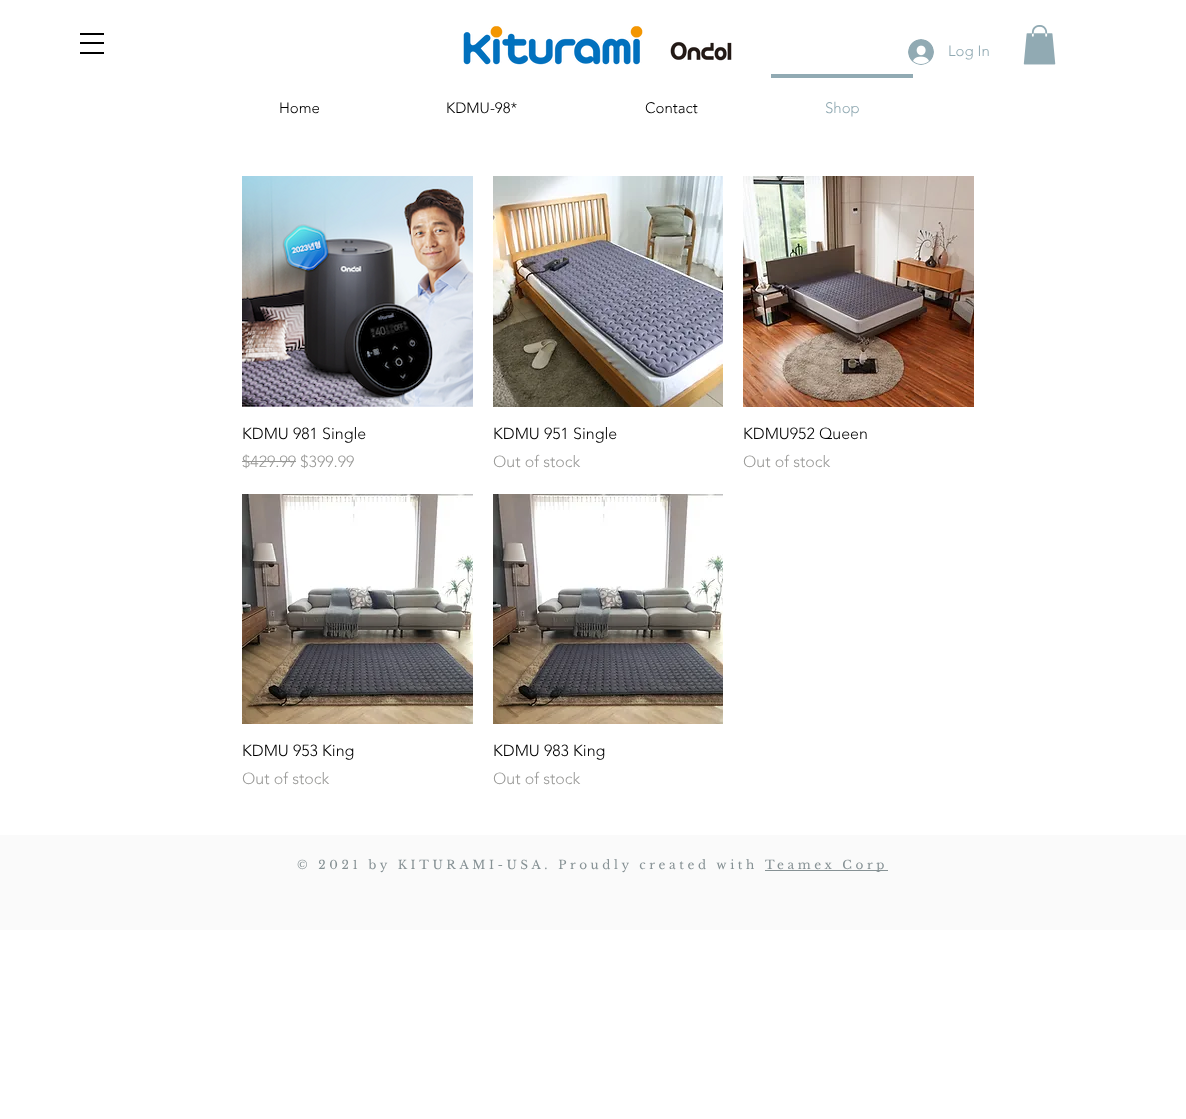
(async () => {
  const canvas = document.querySelector("canvas");
  canvas.width = 1186;
  canvas.height = 1119;
  const ctx = canvas.getContext("2d");
  ctx.miterLimit = 4;
  ctx.fontKerning = "normal";
  async function loadImage(src) {
    const img = new Image();
    img.src = src;
    await img.decode();
    return img;
  }

  ctx.fillStyle = "#ffffff";
  ctx.fillRect(0, 0, 1186, 1119);
  for (const [x, y, w, h, color] of [
    [80, 33, 24, 2, "#000000"],
    [80, 42, 24, 2, "#000000"],
    [80, 52, 24, 2, "#000000"],
  ]) {
    ctx.fillStyle = color;
    ctx.fillRect(x, y, w, h);
  }
  ctx.drawImage(await loadImage("img/1.png"), 463, 26, 180, 39);
  ctx.drawImage(await loadImage("img/2.png"), 670, 41, 62, 20);
  ctx.drawImage(await loadImage("img/3.png"), 908, 39, 26, 26);
  ctx.drawImage(await loadImage("img/4.png"), 1023, 25, 33, 40);
  ctx.fillStyle = "#91aab3";
  ctx.fillRect(771, 74, 142, 4);
  ctx.drawImage(await loadImage("img/5.png"), 242, 176, 231, 231);
  ctx.fillStyle = "#999997";
  ctx.fillRect(242, 461, 54, 1);
  ctx.drawImage(await loadImage("img/6.png"), 493, 176, 230, 231);
  ctx.drawImage(await loadImage("img/7.png"), 743, 176, 231, 231);
  ctx.drawImage(await loadImage("img/8.png"), 242, 494, 231, 230);
  ctx.drawImage(await loadImage("img/9.png"), 493, 494, 230, 230);
  ctx.fillStyle = "#fafafa";
  ctx.fillRect(0, 835, 1186, 95);
  ctx.fillStyle = "#869194";
  ctx.fillRect(765, 870, 123, 1);
  ctx.font = "300 15px 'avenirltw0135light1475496'";
  ctx.fillStyle = "#91aab3";
  ctx.fillText("Log In", 948, 56);
  ctx.fillStyle = "#000000";
  for (const [text, x, y] of [
    ["Home", 279, 113],
    ["KDMU-98*", 446, 113],
    ["Contact", 645, 113],
  ]) {
    ctx.fillText(text, x, y);
  }
  ctx.fillStyle = "#91aab3";
  ctx.fillText("Shop", 825, 113);
  ctx.font = "300 16px 'avenirltw0135light1475496'";
  ctx.fillStyle = "#000000";
  ctx.fillText("KDMU 981 Single", 242, 439);
  ctx.fillStyle = "#999997";
  ctx.fillText("$429.99 $399.99", 242, 467);
  ctx.fillStyle = "#000000";
  ctx.fillText("KDMU 951 Single", 493, 439);
  ctx.fillStyle = "#999997";
  ctx.fillText("Out of stock", 493, 467);
  ctx.fillStyle = "#000000";
  ctx.fillText("KDMU952 Queen", 743, 439);
  ctx.fillStyle = "#999997";
  ctx.fillText("Out of stock", 743, 467);
  ctx.fillStyle = "#000000";
  ctx.fillText("KDMU 953 King", 242, 756);
  ctx.fillStyle = "#999997";
  ctx.fillText("Out of stock", 242, 784);
  ctx.fillStyle = "#000000";
  ctx.fillText("KDMU 983 King", 493, 756);
  ctx.fillStyle = "#999997";
  ctx.fillText("Out of stock", 493, 784);
  ctx.letterSpacing = "3.6px";
  ctx.font = "12px Libre Baskerville";
  ctx.fillStyle = "#869194";
  ctx.fillText("© 2021 by KITURAMI-USA. Proudly created with", 297, 869);
  ctx.fillText("Teamex Corp", 765, 869);
})();
